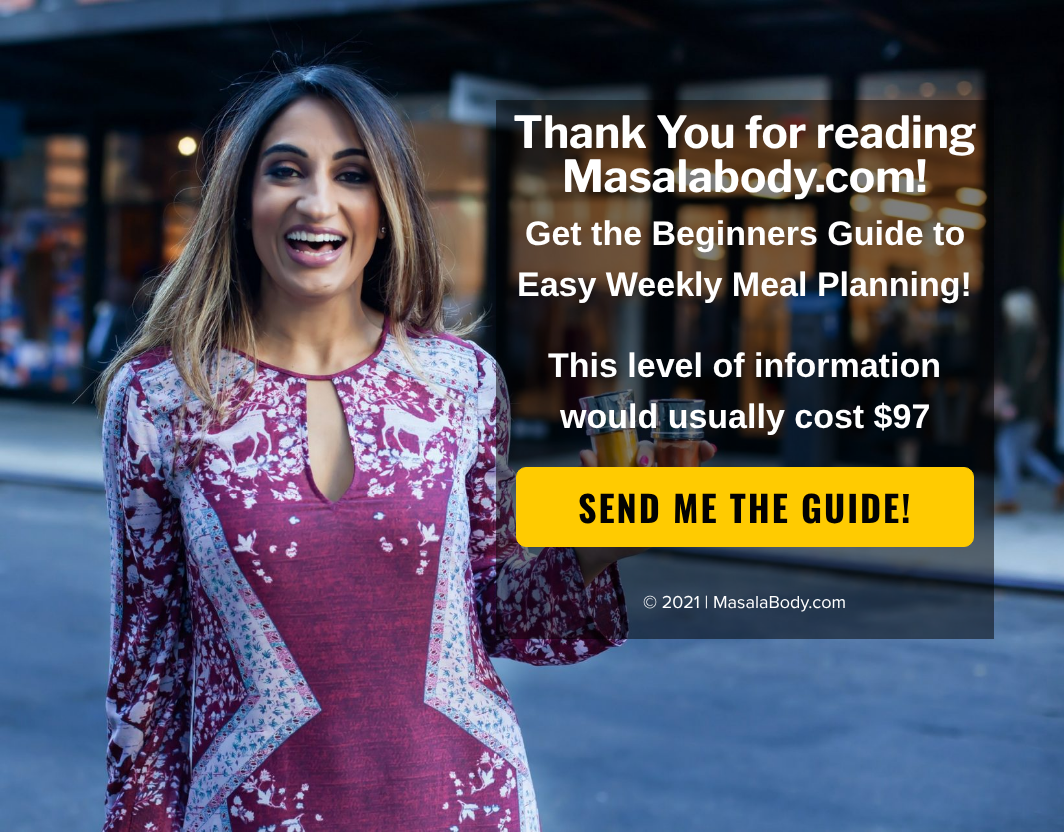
(async () => {
  const canvas = document.querySelector("canvas");
  canvas.width = 1064;
  canvas.height = 832;
  const ctx = canvas.getContext("2d");
  ctx.miterLimit = 4;
  ctx.fontKerning = "normal";
  async function loadImage(src) {
    const img = new Image();
    img.src = src;
    await img.decode();
    return img;
  }

  ctx.fillStyle = "#ffffff";
  ctx.fillRect(0, 0, 1064, 832);
  ctx.drawImage(await loadImage("img/1.png"), 0, 0, 1064, 832);
  ctx.fillStyle = "rgba(0, 0, 0, 0.5)";
  ctx.fillRect(496, 100, 498, 539);
  ctx.fillStyle = "#ffcb01";
  ctx.beginPath();
  ctx.roundRect(516.5, 467.5, 457, 79, 9.5);
  ctx.fill();
  ctx.strokeStyle = "#ffcb01";
  ctx.stroke();
  ctx.font = "100 44px Libre Franklin";
  ctx.fillStyle = "#ffffff";
  ctx.fillText("Thank You for reading", 513, 148);
  ctx.fillText("Masalabody.com!", 562, 192);
  ctx.font = "bold 34px Liberation Sans";
  for (const [text, x, y] of [
    ["Get the Beginners Guide to", 525, 245],
    ["Easy Weekly Meal Planning!", 517, 296],
    ["This level of information", 548, 377],
    ["would usually cost $97", 560, 428],
  ]) {
    ctx.fillText(text, x, y);
  }
  ctx.letterSpacing = "2px";
  ctx.font = "bold 36px Oswald";
  ctx.fillStyle = "#020202";
  ctx.fillText("SEND ME THE GUIDE!", 578, 523);
  ctx.letterSpacing = "0px";
  ctx.font = "18px Proxima Nova";
  ctx.fillStyle = "#ffffff";
  ctx.fillText("© 2021 | MasalaBody.com", 643, 608);
})();
